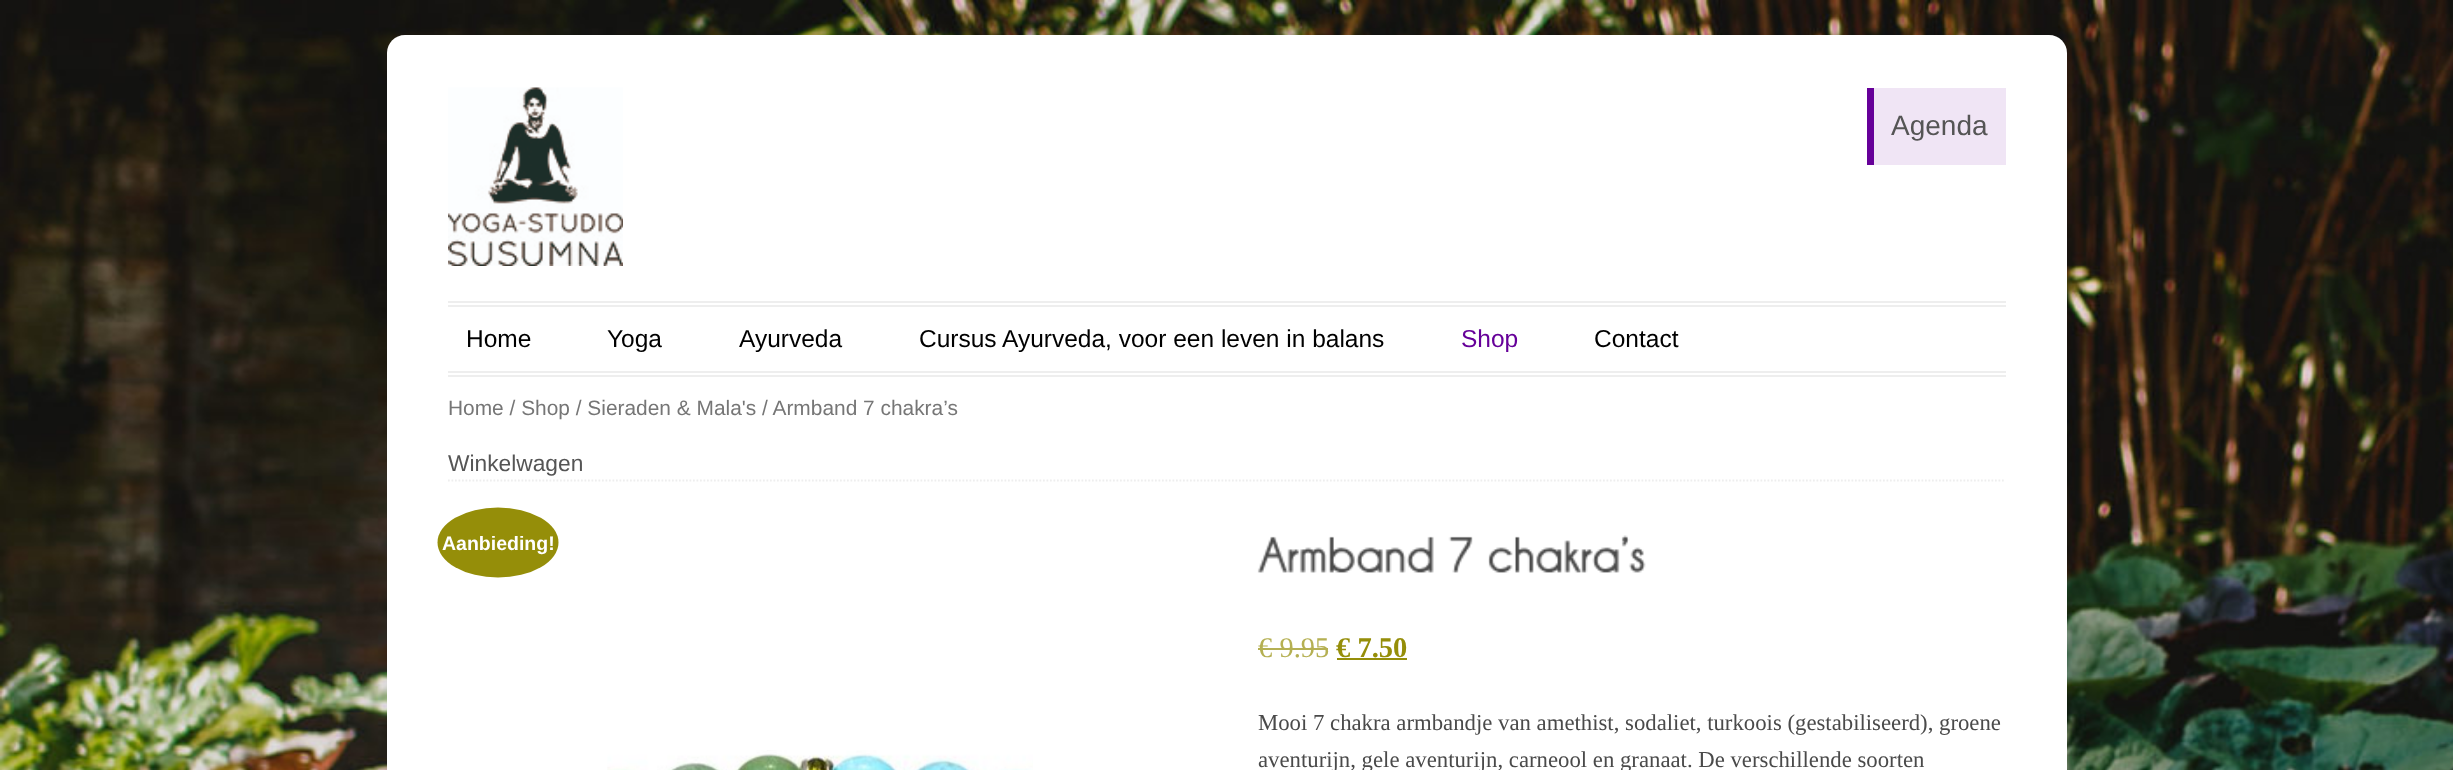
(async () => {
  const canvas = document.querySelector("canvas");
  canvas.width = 2453;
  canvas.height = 770;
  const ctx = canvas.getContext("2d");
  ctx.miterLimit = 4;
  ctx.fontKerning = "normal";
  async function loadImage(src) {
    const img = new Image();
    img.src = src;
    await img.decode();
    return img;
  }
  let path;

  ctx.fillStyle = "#ffffff";
  ctx.fillRect(0, 0, 2453, 770);
  ctx.drawImage(await loadImage("img/1.png"), 0, 0, 2453, 770);
  path = new Path2D("M405 35H2049C2059 35 2067 43 2067 53V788H387V53C387 43 395 35 405 35Z");
  ctx.fill(path);
  ctx.drawImage(await loadImage("img/2.png"), 448, 87, 175, 179);
  for (const [x, y, w, h, color] of [
    [1874, 88, 132, 77, "#f0e5f5"],
    [1867, 88, 7, 77, "#660099"],
    [448, 301, 1558, 2, "#eeeeee"],
    [448, 305, 1558, 2, "#eeeeee"],
    [448, 371, 1558, 2, "#eeeeee"],
    [448, 375, 1558, 2, "#eeeeee"],
  ]) {
    ctx.fillStyle = color;
    ctx.fillRect(x, y, w, h);
  }
  path = new Path2D("M448 480.5H2005.5");
  ctx.strokeStyle = "#eeeeee";
  ctx.lineWidth = 1.8;
  ctx.setLineDash([1.75, 1.75]);
  ctx.stroke(path);
  ctx.fillStyle = "#958e09";
  ctx.beginPath();
  ctx.ellipse(498, 542.5, 60.5, 35, 0, 0, Math.PI * 2);
  ctx.fill();
  ctx.drawImage(await loadImage("img/3.png"), 607, 750, 426, 20);
  ctx.drawImage(await loadImage("img/4.png"), 1257, 536, 177, 37);
  ctx.drawImage(await loadImage("img/5.png"), 1448, 536, 25, 37);
  ctx.drawImage(await loadImage("img/6.png"), 1488, 535, 158, 38);
  ctx.fillStyle = "#b5b053";
  ctx.fillRect(1258, 648, 70, 2);
  ctx.fillStyle = "#958e09";
  ctx.fillRect(1337, 658, 70, 2);
  ctx.font = "28px Liberation Sans";
  ctx.fillStyle = "#555555";
  ctx.fillText("Agenda", 1891, 135);
  ctx.font = "24.5px Liberation Sans";
  ctx.fillStyle = "#000000";
  for (const [text, x, y] of [
    ["Home", 466, 347],
    ["Yoga", 607, 347],
    ["Ayurveda", 739, 347],
    ["Cursus Ayurveda, voor een leven in balans", 919, 347],
  ]) {
    ctx.fillText(text, x, y);
  }
  ctx.fillStyle = "#660099";
  ctx.fillText("Shop", 1461, 347);
  ctx.fillStyle = "#000000";
  ctx.fillText("Contact", 1594, 347);
  ctx.font = "20.9px Liberation Sans";
  ctx.fillStyle = "#767676";
  ctx.fillText("Home / Shop / Sieraden & Mala's / Armband 7 chakra’s", 448, 415);
  ctx.font = "22.75px Liberation Sans";
  ctx.fillStyle = "#555555";
  ctx.fillText("Winkelwagen", 448, 471);
  ctx.font = "bold 19.5px Liberation Sans";
  ctx.fillStyle = "#ffffff";
  ctx.fillText("Aanbieding!", 442, 550);
  ctx.font = "28.5px Liberation Serif";
  ctx.fillStyle = "#b5b053";
  ctx.fillText("€ 9.95", 1258, 657);
  ctx.font = "bold 28.5px Liberation Serif";
  ctx.fillStyle = "#958e09";
  ctx.fillText("€ 7.50", 1336, 657);
  ctx.font = "22.75px Liberation Serif";
  ctx.fillStyle = "#4a4a4a";
  ctx.fillText("Mooi 7 chakra armbandje van amethist, sodaliet, turkoois (gestabiliseerd), groene", 1258, 730);
  ctx.fillText("aventurijn, gele aventurijn, carneool en granaat. De verschillende soorten", 1258, 767);
})();
